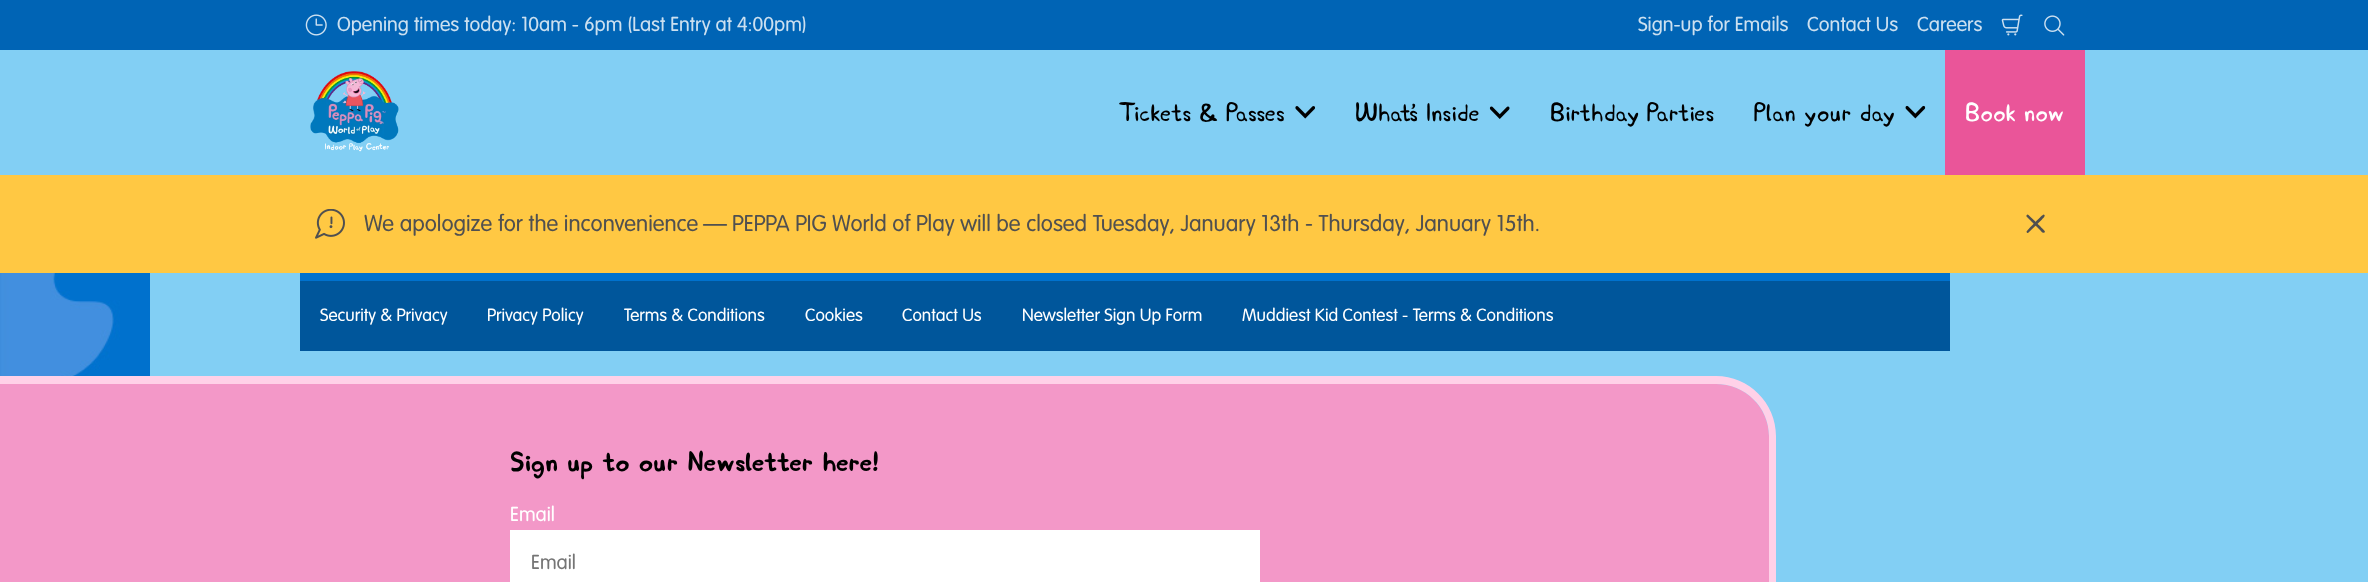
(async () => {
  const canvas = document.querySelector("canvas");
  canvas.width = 2368;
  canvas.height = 582;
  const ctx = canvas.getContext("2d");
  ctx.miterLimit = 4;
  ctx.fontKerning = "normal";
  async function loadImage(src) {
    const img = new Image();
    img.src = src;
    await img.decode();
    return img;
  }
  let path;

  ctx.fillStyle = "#82cff4";
  ctx.fillRect(0, 0, 2368, 582);
  ctx.fillStyle = "#0064b5";
  ctx.fillRect(0, 0, 2368, 50);
  ctx.drawImage(await loadImage("img/1.png"), 305, 14, 22, 22);
  ctx.drawImage(await loadImage("img/2.png"), 2001, 14, 22, 22);
  ctx.drawImage(await loadImage("img/3.png"), 2044, 15, 21, 21);
  ctx.drawImage(await loadImage("img/4.png"), 310, 71, 89, 81);
  ctx.drawImage(await loadImage("img/5.png"), 1295, 106, 20, 13);
  ctx.drawImage(await loadImage("img/6.png"), 1489, 106, 21, 13);
  ctx.drawImage(await loadImage("img/7.png"), 1905, 105, 21, 14);
  ctx.fillStyle = "#ea5599";
  ctx.fillRect(1945, 50, 140, 125);
  ctx.fillStyle = "#ffc843";
  ctx.fillRect(0, 175, 2368, 98);
  ctx.drawImage(await loadImage("img/8.png"), 315, 209, 30, 30);
  ctx.fillStyle = "#505050";
  path = new Path2D("M2028.5 215C2030.5 217 2045 230.5 2045 231.5L2044.5 232.5C2042.5 234 2040.5 230 2040 230L2026.5 216.5C2026 215.5 2027 214.5 2027.5 214.5Z");
  ctx.fill(path);
  path = new Path2D("M2027 231C2028.5 229 2042.5 214.5 2043.5 214.5L2044.5 215C2045.5 216.5 2042 219 2042 219.5L2028 233C2027.5 233 2026.5 232.5 2026.5 231.5Z");
  ctx.fill(path);
  ctx.drawImage(await loadImage("img/9.png"), 0, 273, 150, 103);
  ctx.fillStyle = "#0072ce";
  ctx.fillRect(300, 273, 1650, 8);
  ctx.fillStyle = "#00569b";
  ctx.fillRect(300, 281, 1650, 70);
  ctx.fillStyle = "#f398c8";
  path = new Path2D("M0 384H1716C1745.5 384 1769 407.5 1769 437V582C1769 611.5 1745.5 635 1716 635H0Z");
  ctx.fill(path);
  ctx.fillStyle = "#ffd1e8";
  path = new Path2D("M0 376H1716C1749 376 1776 403 1776 436V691C1776 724 1749 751 1716 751H0ZM0 384H1716C1745 384 1769 407 1769 436V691C1769 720 1745 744 1716 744H0Z");
  ctx.fill(path, "evenodd");
  ctx.fillStyle = "#ffffff";
  ctx.fillRect(510, 530, 750, 52);
  ctx.font = "300 20px 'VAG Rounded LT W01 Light'";
  ctx.fillStyle = "#cce0f0";
  for (const [text, x, y] of [
    ["Opening times today: 10am - 6pm (Last Entry at 4:00pm)", 337, 31],
    ["Sign-up for Emails", 1638, 31],
    ["Contact Us", 1807, 31],
    ["Careers", 1917, 31],
  ]) {
    ctx.fillText(text, x, y);
  }
  ctx.font = "27.5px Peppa";
  ctx.fillStyle = "#000000";
  for (const [text, x, y] of [
    ["Tickets & Passes", 1119, 121],
    ["What's Inside", 1355, 121],
    ["Birthday Parties", 1550, 121],
    ["Plan your day", 1754, 121],
  ]) {
    ctx.fillText(text, x, y);
  }
  ctx.fillStyle = "#ffffff";
  ctx.fillText("Book now", 1965, 121);
  ctx.font = "300 22.5px 'VAG Rounded LT W01 Light'";
  ctx.fillStyle = "#505050";
  ctx.fillText("We apologize for the inconvenience — PEPPA PIG World of Play will be closed Tuesday, January 13th - Thursday, January 15th.", 364, 231);
  ctx.font = "300 17.5px 'VAG Rounded LT W01 Light'";
  ctx.fillStyle = "#ffffff";
  for (const [text, x, y] of [
    ["Security & Privacy", 320, 321],
    ["Privacy Policy", 487, 321],
    ["Terms & Conditions", 624, 321],
    ["Cookies", 805, 321],
    ["Contact Us", 902, 321],
    ["Newsletter Sign Up Form", 1022, 321],
    ["Muddiest Kid Contest - Terms & Conditions", 1242, 321],
  ]) {
    ctx.fillText(text, x, y);
  }
  ctx.font = "bold 30px Peppa";
  ctx.fillStyle = "#000000";
  ctx.fillText("Sign up to our Newsletter here!", 510, 471);
  ctx.font = "300 20px 'VAG Rounded LT W01 Light'";
  ctx.fillStyle = "#ffffff";
  ctx.fillText("Email", 510, 521);
  ctx.fillStyle = "#757575";
  ctx.fillText("Email", 531, 569);
})();
